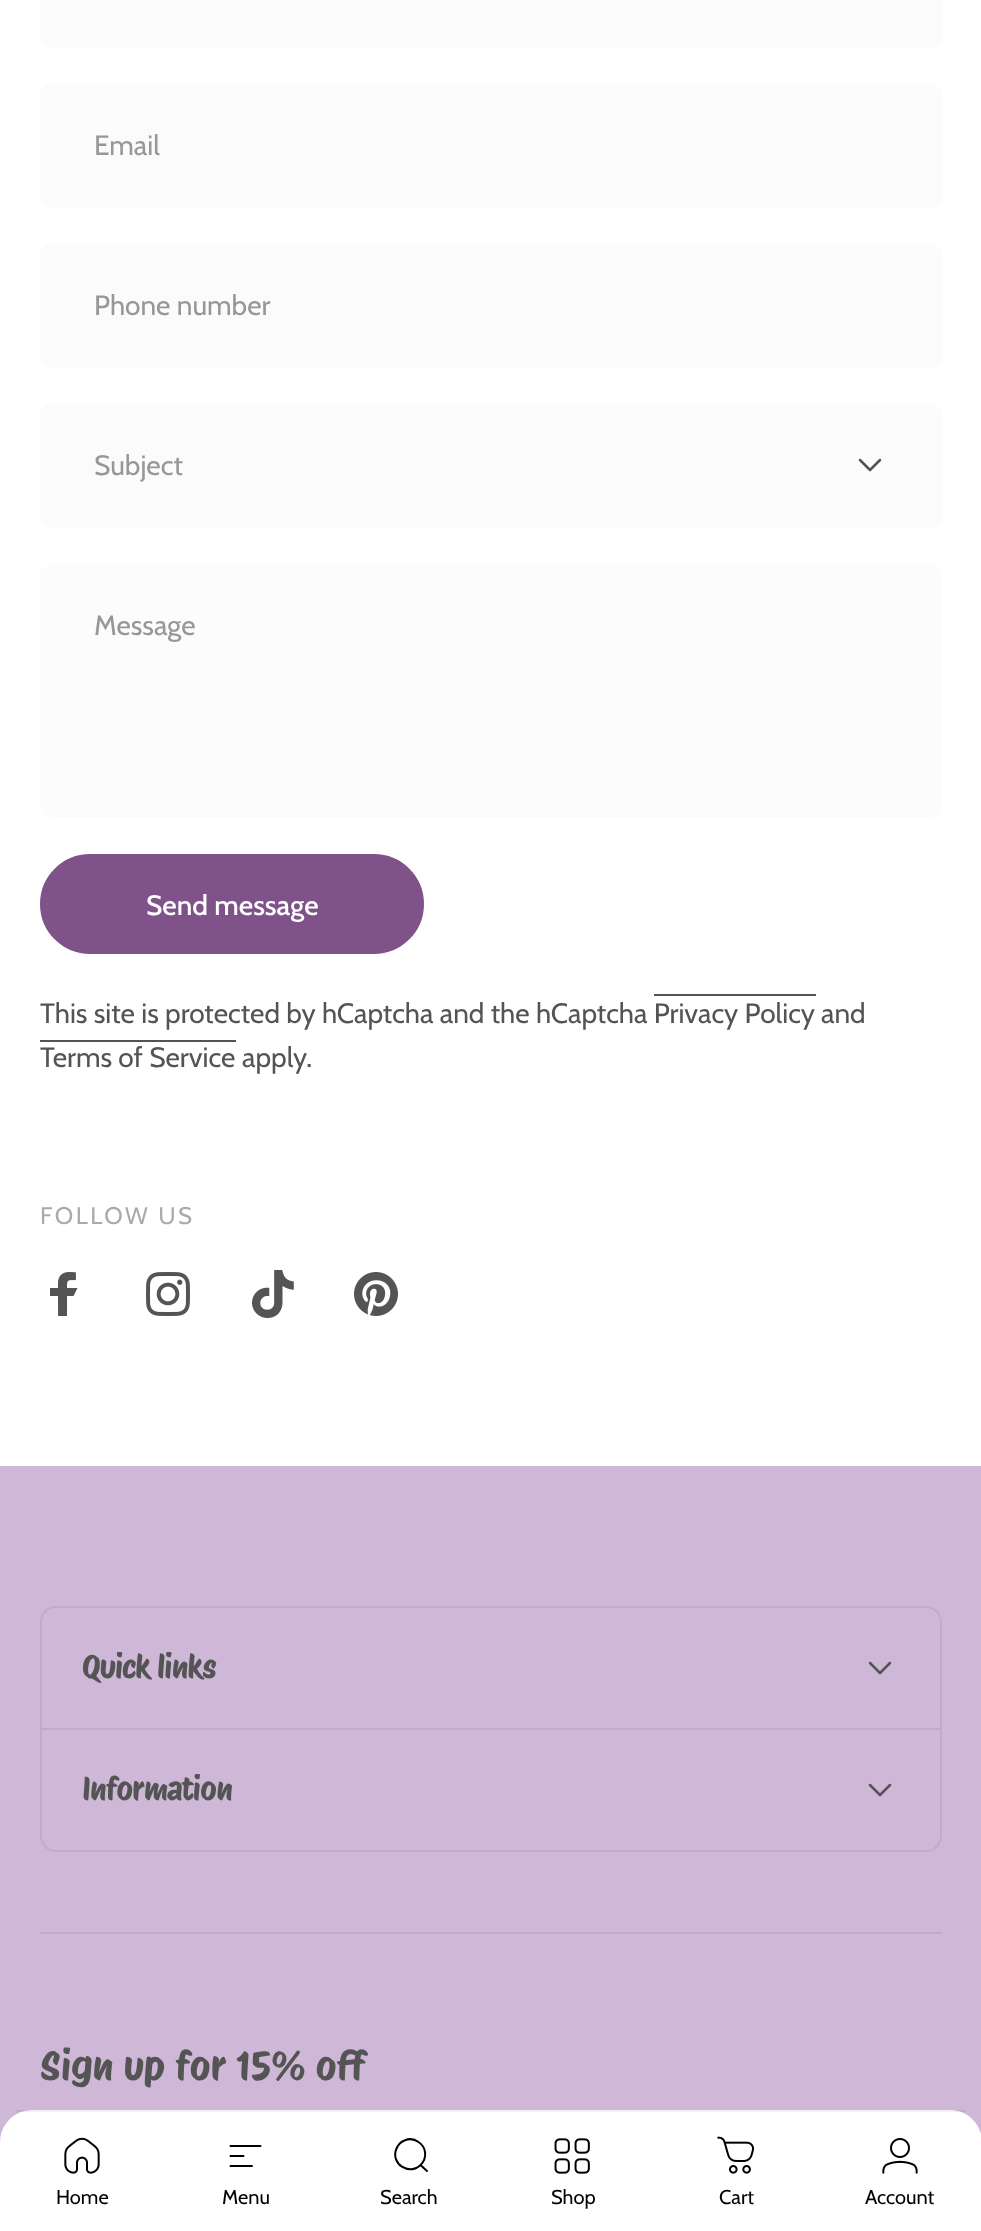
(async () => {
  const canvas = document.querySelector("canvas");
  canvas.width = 981;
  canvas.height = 2231;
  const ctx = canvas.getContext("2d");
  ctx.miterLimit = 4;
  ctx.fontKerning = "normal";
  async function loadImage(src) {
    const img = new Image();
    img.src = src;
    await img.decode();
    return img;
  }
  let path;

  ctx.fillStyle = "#ffffff";
  ctx.fillRect(0, 0, 981, 2231);
  ctx.fillStyle = "#fbfbfb";
  ctx.beginPath();
  ctx.roundRect(40, -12, 902, 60, 12);
  ctx.fill();
  ctx.beginPath();
  ctx.roundRect(40, 84, 902, 124, 12);
  ctx.fill();
  ctx.beginPath();
  ctx.roundRect(40, 244, 902, 124, 12);
  ctx.fill();
  ctx.beginPath();
  ctx.roundRect(40, 404, 902, 124, 12);
  ctx.fill();
  path = new Path2D("M860 460L870 470L880 460");
  ctx.strokeStyle = "#545454";
  ctx.lineWidth = 2.5;
  ctx.lineCap = "round";
  ctx.lineJoin = "round";
  ctx.stroke(path);
  ctx.fillStyle = "#fcfcfc";
  ctx.beginPath();
  ctx.roundRect(40, 564, 902, 254, 12);
  ctx.fill();
  ctx.fillStyle = "#7f538a";
  ctx.beginPath();
  ctx.roundRect(42, 856, 380, 96, 48);
  ctx.fill();
  ctx.strokeStyle = "#7f538a";
  ctx.lineWidth = 4;
  ctx.lineJoin = "miter";
  ctx.stroke();
  ctx.fillStyle = "#545454";
  ctx.fillRect(654, 994, 162, 2);
  ctx.fillRect(40, 1040, 196, 2);
  ctx.drawImage(await loadImage("img/1.png"), 50, 1272, 28, 44);
  ctx.drawImage(await loadImage("img/2.png"), 146, 1272, 44, 44);
  ctx.drawImage(await loadImage("img/3.png"), 252, 1270, 42, 48);
  ctx.drawImage(await loadImage("img/4.png"), 354, 1272, 44, 44);
  ctx.fillStyle = "#ceb7d7";
  ctx.fillRect(0, 1466, 981, 676);
  ctx.fillStyle = "#c0acc8";
  path = new Path2D("M56 1606H926C935 1606 942 1613 942 1622V1728H40V1622C40 1613 47 1606 56 1606ZM56 1608H926C934 1608 940 1614 940 1622V1728H42V1622C42 1614 48 1608 56 1608Z");
  ctx.fill(path, "evenodd");
  path = new Path2D("M870 1663L880 1673L890 1663");
  ctx.strokeStyle = "#545454";
  ctx.lineWidth = 2.5;
  ctx.lineJoin = "round";
  ctx.stroke(path);
  ctx.beginPath();
  ctx.roundRect(41, 1729, 900, 122, [0, 0, 15, 15]);
  ctx.strokeStyle = "#c0acc8";
  ctx.lineWidth = 2;
  ctx.lineJoin = "miter";
  ctx.stroke();
  path = new Path2D("M870 1785L880 1795L890 1785");
  ctx.strokeStyle = "#545454";
  ctx.lineWidth = 2.5;
  ctx.lineJoin = "round";
  ctx.stroke(path);
  ctx.fillRect(40, 1932, 902, 2);
  ctx.fillStyle = "#ffffff";
  path = new Path2D("M32 2110H950C967.5 2110 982 2124.5 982 2142V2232H0V2142C0 2124.5 14.5 2110 32 2110Z");
  ctx.fill(path);
  ctx.fillStyle = "rgba(0, 0, 0, 0.06)";
  ctx.fillRect(16, 2110, 950, 2);
  ctx.drawImage(await loadImage("img/5.png"), 64, 2137, 36, 37);
  path = new Path2D("M230.5 2146H260.5M230.5 2156H243.5M230.5 2166H252");
  ctx.strokeStyle = "#000000";
  ctx.lineWidth = 2;
  ctx.stroke(path);
  path = new Path2D("M427 2171L420.5 2165M420.5 2165C427.5 2158.5 426.5 2147 418.5 2142C414.5 2139 409 2138.5 404.5 2140.5C400.5 2142 398 2145 396.5 2148.5C390 2164 409.5 2176 420.5 2165Z");
  ctx.stroke(path);
  ctx.drawImage(await loadImage("img/6.png"), 554, 2138, 36, 36);
  ctx.drawImage(await loadImage("img/7.png"), 717, 2136, 38, 38);
  ctx.drawImage(await loadImage("img/8.png"), 882, 2138, 36, 36);
  ctx.font = "28px Cabin";
  ctx.fillStyle = "#979797";
  for (const [text, x, y] of [
    ["Email", 94, 155],
    ["Phone number", 94, 315],
    ["Subject", 94, 475],
    ["Message", 94, 635],
  ]) {
    ctx.fillText(text, x, y);
  }
  ctx.font = "500 28px Cabin";
  ctx.fillStyle = "#ffffff";
  ctx.fillText("Send message", 146, 915);
  ctx.font = "28px Cabin";
  ctx.fillStyle = "#545454";
  for (const [text, x, y] of [
    ["This site is protected by hCaptcha and the hCaptcha Privacy Policy", 40, 1023],
    ["and", 821, 1023],
    ["Terms of Service", 40, 1067],
    ["apply.", 242, 1067],
  ]) {
    ctx.fillText(text, x, y);
  }
  ctx.letterSpacing = "2.5px";
  ctx.font = "24px Cabin";
  ctx.fillStyle = "#aaaaaa";
  ctx.fillText("FOLLOW US", 40, 1224);
  ctx.letterSpacing = "-1px";
  ctx.font = "32px Protest Riot";
  ctx.fillStyle = "#545454";
  ctx.fillText("Quick links", 82, 1678);
  ctx.fillText("Information", 82, 1800);
  ctx.letterSpacing = "0px";
  ctx.font = "40px Protest Riot";
  ctx.fillText("Sign up for 15% off", 40, 2080);
  ctx.font = "20px Cabin";
  ctx.fillStyle = "#000000";
  for (const [text, x, y] of [
    ["Home", 56, 2204],
    ["Menu", 222, 2204],
    ["Search", 380, 2204],
    ["Shop", 551, 2204],
    ["Cart", 719, 2204],
    ["Account", 865, 2204],
  ]) {
    ctx.fillText(text, x, y);
  }
})();
